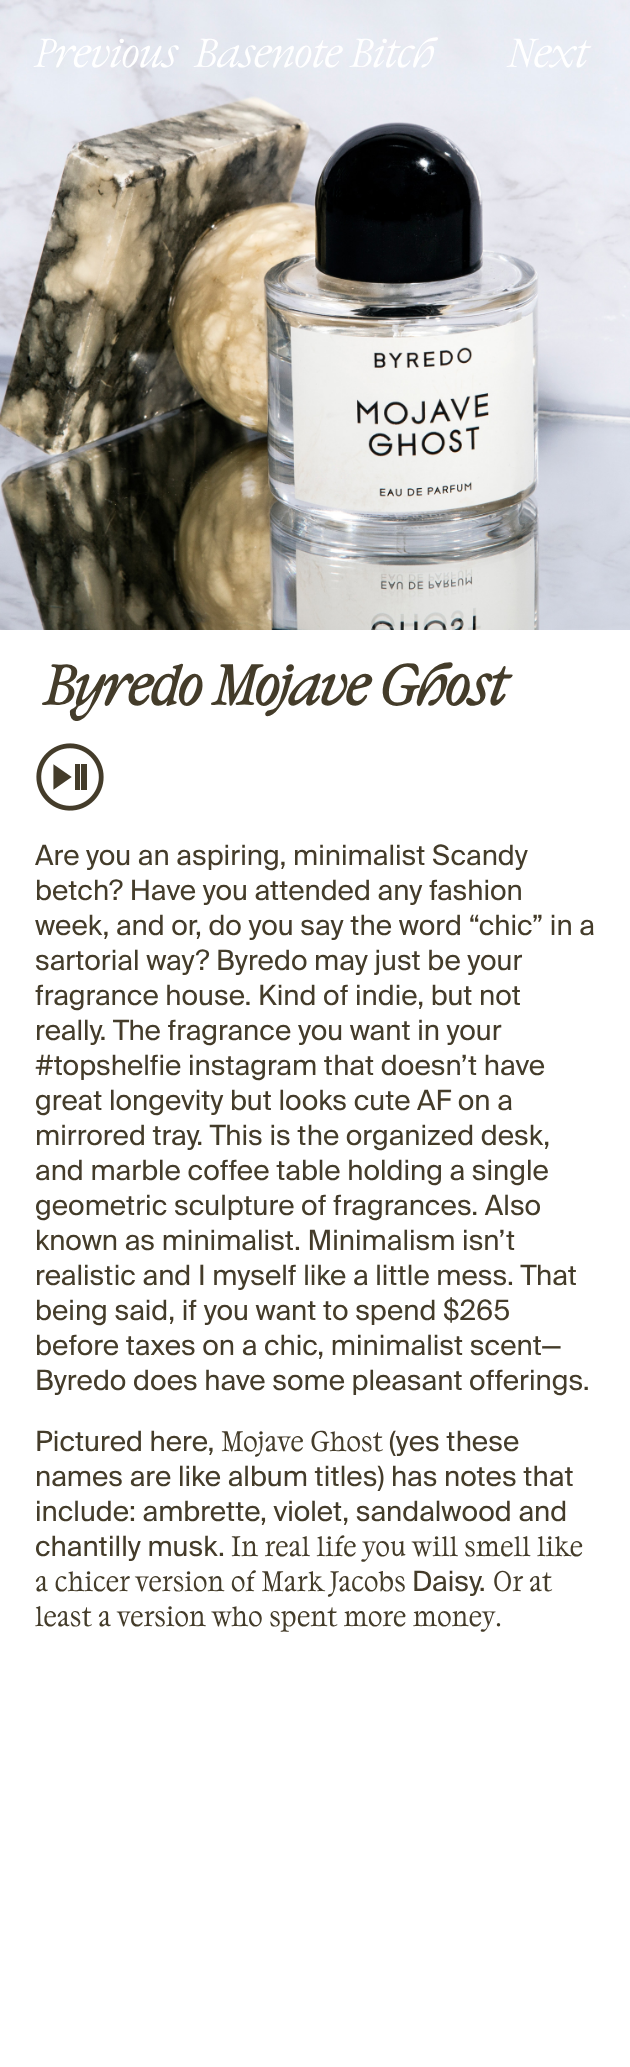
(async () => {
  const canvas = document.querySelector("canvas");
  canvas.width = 630;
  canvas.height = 2067;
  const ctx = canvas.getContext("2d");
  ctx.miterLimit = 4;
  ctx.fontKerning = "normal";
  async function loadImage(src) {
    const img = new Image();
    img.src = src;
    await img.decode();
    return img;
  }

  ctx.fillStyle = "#ffffff";
  ctx.fillRect(0, 0, 630, 2067);
  ctx.drawImage(await loadImage("img/1.png"), 0, 0, 630, 630);
  ctx.drawImage(await loadImage("img/2.png"), 36, 743, 68, 68);
  ctx.font = "40.5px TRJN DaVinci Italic";
  for (const [text, x, y] of [
    ["Previous", 35, 67],
    ["Basenote Bitch", 195, 67],
    ["Next", 508, 67],
  ]) {
    ctx.fillText(text, x, y);
  }
  ctx.letterSpacing = "-0.8px";
  ctx.font = "bold 56px TRJN DaVinci Italic";
  ctx.fillStyle = "#443c2a";
  ctx.fillText("Byredo Mojave Ghost", 44, 705);
  ctx.letterSpacing = "0px";
  ctx.font = "28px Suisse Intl";
  for (const [text, x, y] of [
    ["Are you an aspiring, minimalist Scandy", 35, 865],
    ["betch? Have you attended any fashion", 35, 900],
    ["week, and or, do you say the word “chic” in a", 35, 935],
    ["sartorial way? Byredo may just be your", 35, 970],
    ["fragrance house. Kind of indie, but not", 35, 1005],
    ["really. The fragrance you want in your", 35, 1040],
    ["#topshelfie instagram that doesn’t have", 35, 1075],
    ["great longevity but looks cute AF on a", 35, 1110],
    ["mirrored tray. This is the organized desk,", 35, 1145],
    ["and marble coffee table holding a single", 35, 1180],
    ["geometric sculpture of fragrances. Also", 35, 1215],
    ["known as minimalist. Minimalism isn’t", 35, 1250],
    ["realistic and I myself like a little mess. That", 35, 1285],
    ["being said, if you want to spend $265", 35, 1320],
    ["before taxes on a chic, minimalist scent—", 35, 1355],
    ["Byredo does have some pleasant offerings.", 35, 1390],
    ["Pictured here,", 35, 1451],
  ]) {
    ctx.fillText(text, x, y);
  }
  ctx.font = "28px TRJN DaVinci";
  ctx.fillText("Mojave Ghost", 221, 1451);
  ctx.font = "28px Suisse Intl";
  for (const [text, x, y] of [
    ["(yes these", 389, 1451],
    ["names are like album titles) has notes that", 35, 1486],
    ["include: ambrette, violet, sandalwood and", 35, 1521],
    ["chantilly musk.", 35, 1556],
  ]) {
    ctx.fillText(text, x, y);
  }
  ctx.font = "28px TRJN DaVinci";
  ctx.fillText("In real life you will smell like", 231, 1556);
  ctx.fillText("a chicer version of Mark Jacobs", 35, 1591);
  ctx.font = "28px Suisse Intl";
  ctx.fillText("Daisy.", 412, 1591);
  ctx.font = "28px TRJN DaVinci";
  ctx.fillText("Or at", 493, 1591);
  ctx.fillText("least a version who spent more money", 35, 1626);
  ctx.font = "28px Liberation Serif";
  ctx.fillText(".", 495, 1626);
})();
